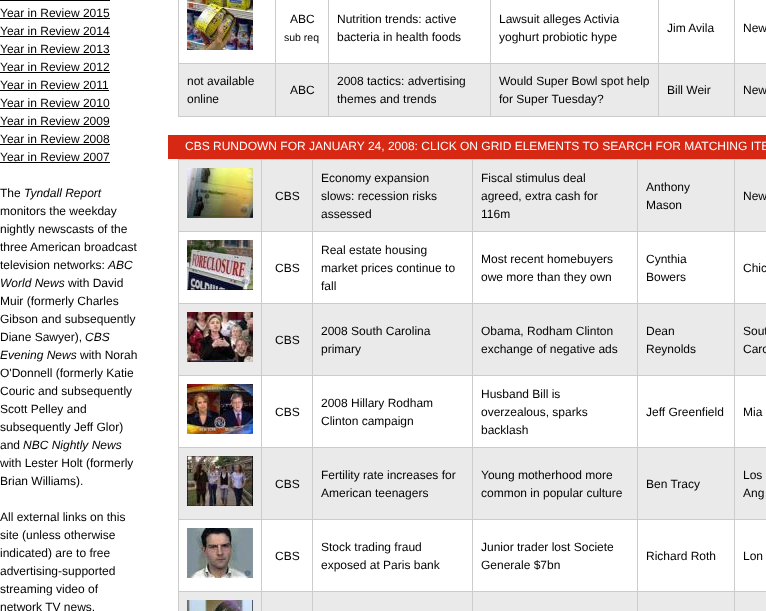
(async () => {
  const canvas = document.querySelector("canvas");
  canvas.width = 766;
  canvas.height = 611;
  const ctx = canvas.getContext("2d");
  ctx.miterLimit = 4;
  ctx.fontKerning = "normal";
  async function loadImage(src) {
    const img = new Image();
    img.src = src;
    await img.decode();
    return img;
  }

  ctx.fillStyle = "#ffffff";
  ctx.fillRect(0, 0, 766, 611);
  for (const [x, y, w, h, color] of [
    [0, 0, 110, 1, "#000000"],
    [0, 18, 110, 1, "#000000"],
    [0, 36, 110, 1, "#000000"],
    [0, 54, 110, 1, "#000000"],
    [0, 72, 110, 1, "#000000"],
    [0, 90, 109, 1, "#000000"],
    [0, 108, 110, 1, "#000000"],
    [0, 126, 110, 1, "#000000"],
    [0, 144, 110, 1, "#000000"],
    [0, 162, 110, 1, "#000000"],
    [178, 116, 588, 1, "#cccccc"],
    [178, 0, 1, 117, "#cccccc"],
  ]) {
    ctx.fillStyle = color;
    ctx.fillRect(x, y, w, h);
  }
  ctx.drawImage(await loadImage("img/1.png"), 187, 0, 66, 50);
  for (const [x, y, w, h, color] of [
    [734, 63, 32, 1, "#cccccc"],
    [179, 64, 587, 52, "#eaeaea"],
    [734, 63, 1, 54, "#cccccc"],
    [658, 63, 77, 1, "#cccccc"],
    [658, 63, 1, 54, "#cccccc"],
    [490, 63, 169, 1, "#cccccc"],
    [490, 63, 1, 54, "#cccccc"],
    [328, 63, 163, 1, "#cccccc"],
    [328, 63, 1, 54, "#cccccc"],
    [275, 63, 54, 1, "#cccccc"],
    [275, 63, 1, 54, "#cccccc"],
    [178, 63, 98, 1, "#cccccc"],
    [275, 0, 1, 64, "#cccccc"],
    [328, 0, 1, 64, "#cccccc"],
    [490, 0, 1, 64, "#cccccc"],
    [658, 0, 1, 64, "#cccccc"],
    [734, 0, 1, 64, "#cccccc"],
    [168, 135, 598, 24, "#d72814"],
    [178, 159, 588, 1, "#cccccc"],
    [178, 159, 1, 452, "#cccccc"],
    [179, 160, 587, 71, "#eaeaea"],
  ]) {
    ctx.fillStyle = color;
    ctx.fillRect(x, y, w, h);
  }
  ctx.drawImage(await loadImage("img/2.png"), 187, 168, 66, 50);
  for (const [x, y, w, h, color] of [
    [734, 231, 32, 1, "#cccccc"],
    [734, 303, 32, 1, "#cccccc"],
    [179, 304, 587, 71, "#eaeaea"],
    [734, 375, 32, 1, "#cccccc"],
    [734, 447, 32, 1, "#cccccc"],
    [179, 448, 587, 71, "#eaeaea"],
    [734, 519, 32, 1, "#cccccc"],
    [734, 591, 32, 1, "#cccccc"],
    [179, 592, 587, 19, "#eaeaea"],
    [734, 591, 1, 20, "#cccccc"],
    [637, 591, 98, 1, "#cccccc"],
    [734, 519, 1, 73, "#cccccc"],
    [637, 519, 98, 1, "#cccccc"],
    [734, 447, 1, 73, "#cccccc"],
    [637, 447, 98, 1, "#cccccc"],
    [734, 375, 1, 73, "#cccccc"],
    [637, 375, 98, 1, "#cccccc"],
    [734, 303, 1, 73, "#cccccc"],
    [637, 303, 98, 1, "#cccccc"],
    [734, 231, 1, 73, "#cccccc"],
    [637, 231, 98, 1, "#cccccc"],
    [637, 591, 1, 20, "#cccccc"],
    [472, 591, 166, 1, "#cccccc"],
    [637, 519, 1, 73, "#cccccc"],
    [472, 519, 166, 1, "#cccccc"],
    [637, 447, 1, 73, "#cccccc"],
    [472, 447, 166, 1, "#cccccc"],
    [637, 375, 1, 73, "#cccccc"],
    [472, 375, 166, 1, "#cccccc"],
    [637, 303, 1, 73, "#cccccc"],
    [472, 303, 166, 1, "#cccccc"],
    [637, 231, 1, 73, "#cccccc"],
    [472, 231, 166, 1, "#cccccc"],
    [472, 591, 1, 20, "#cccccc"],
    [312, 591, 161, 1, "#cccccc"],
    [472, 519, 1, 73, "#cccccc"],
    [312, 519, 161, 1, "#cccccc"],
    [472, 447, 1, 73, "#cccccc"],
    [312, 447, 161, 1, "#cccccc"],
    [472, 375, 1, 73, "#cccccc"],
    [312, 375, 161, 1, "#cccccc"],
    [472, 303, 1, 73, "#cccccc"],
    [312, 303, 161, 1, "#cccccc"],
    [472, 231, 1, 73, "#cccccc"],
    [312, 231, 161, 1, "#cccccc"],
    [312, 591, 1, 20, "#cccccc"],
    [261, 591, 52, 1, "#cccccc"],
    [312, 519, 1, 73, "#cccccc"],
    [261, 519, 52, 1, "#cccccc"],
    [312, 447, 1, 73, "#cccccc"],
    [261, 447, 52, 1, "#cccccc"],
    [312, 375, 1, 73, "#cccccc"],
    [261, 375, 52, 1, "#cccccc"],
    [312, 303, 1, 73, "#cccccc"],
    [261, 303, 52, 1, "#cccccc"],
    [312, 231, 1, 73, "#cccccc"],
    [261, 231, 52, 1, "#cccccc"],
    [261, 591, 1, 20, "#cccccc"],
    [178, 591, 84, 1, "#cccccc"],
    [261, 519, 1, 73, "#cccccc"],
    [178, 519, 84, 1, "#cccccc"],
    [261, 447, 1, 73, "#cccccc"],
    [178, 447, 84, 1, "#cccccc"],
    [261, 375, 1, 73, "#cccccc"],
    [178, 375, 84, 1, "#cccccc"],
    [261, 303, 1, 73, "#cccccc"],
    [178, 303, 84, 1, "#cccccc"],
    [261, 231, 1, 73, "#cccccc"],
    [178, 231, 84, 1, "#cccccc"],
    [261, 159, 1, 73, "#cccccc"],
    [312, 159, 1, 73, "#cccccc"],
    [472, 159, 1, 73, "#cccccc"],
    [637, 159, 1, 73, "#cccccc"],
    [734, 159, 1, 73, "#cccccc"],
  ]) {
    ctx.fillStyle = color;
    ctx.fillRect(x, y, w, h);
  }
  ctx.drawImage(await loadImage("img/3.png"), 187, 240, 66, 50);
  ctx.drawImage(await loadImage("img/4.png"), 187, 312, 66, 50);
  ctx.drawImage(await loadImage("img/5.png"), 187, 384, 66, 50);
  ctx.drawImage(await loadImage("img/6.png"), 187, 456, 66, 50);
  ctx.drawImage(await loadImage("img/7.png"), 187, 528, 66, 50);
  ctx.drawImage(await loadImage("img/8.png"), 187, 600, 66, 11);
  ctx.font = "12px Liberation Sans";
  ctx.fillStyle = "#000000";
  for (const [text, x, y] of [
    ["Year in Review 2015", 0, 17],
    ["Year in Review 2014", 0, 35],
    ["Year in Review 2013", 0, 53],
    ["Year in Review 2012", 0, 71],
    ["Year in Review 2011", 0, 89],
    ["Year in Review 2010", 0, 107],
    ["Year in Review 2009", 0, 125],
    ["Year in Review 2008", 0, 143],
    ["Year in Review 2007", 0, 161],
    ["The", 0, 197],
  ]) {
    ctx.fillText(text, x, y);
  }
  ctx.font = "italic 12px Liberation Sans";
  ctx.fillText("Tyndall Report", 24, 197);
  ctx.font = "12px Liberation Sans";
  for (const [text, x, y] of [
    ["monitors the weekday", 0, 215],
    ["nightly newscasts of the", 0, 233],
    ["three American broadcast", 0, 251],
    ["television networks:", 0, 269],
  ]) {
    ctx.fillText(text, x, y);
  }
  ctx.font = "italic 12px Liberation Sans";
  ctx.fillText("ABC", 108, 269);
  ctx.fillText("World News", 0, 287);
  ctx.font = "12px Liberation Sans";
  for (const [text, x, y] of [
    ["with David", 68, 287],
    ["Muir (formerly Charles", 0, 305],
    ["Gibson and subsequently", 0, 323],
    ["Diane Sawyer),", 0, 341],
  ]) {
    ctx.fillText(text, x, y);
  }
  ctx.font = "italic 12px Liberation Sans";
  ctx.fillText("CBS", 85, 341);
  ctx.fillText("Evening News", 0, 359);
  ctx.font = "12px Liberation Sans";
  for (const [text, x, y] of [
    ["with Norah", 80, 359],
    ["O'Donnell (formerly Katie", 0, 377],
    ["Couric and subsequently", 0, 395],
    ["Scott Pelley and", 0, 413],
    ["subsequently Jeff Glor)", 0, 431],
    ["and", 0, 449],
  ]) {
    ctx.fillText(text, x, y);
  }
  ctx.font = "italic 12px Liberation Sans";
  ctx.fillText("NBC Nightly News", 23, 449);
  ctx.font = "12px Liberation Sans";
  for (const [text, x, y] of [
    ["with Lester Holt (formerly", 0, 467],
    ["Brian Williams).", 0, 485],
    ["All external links on this", 0, 521],
    ["site (unless otherwise", 0, 539],
    ["indicated) are to free", 0, 557],
    ["advertising-supported", 0, 575],
    ["streaming video of", 0, 593],
    ["network TV news.", 0, 611],
    ["ABC", 290, 23],
  ]) {
    ctx.fillText(text, x, y);
  }
  ctx.font = "10.5px Liberation Sans";
  ctx.fillText("sub req", 284, 41);
  ctx.font = "12px Liberation Sans";
  for (const [text, x, y] of [
    ["Nutrition trends: active", 337, 23],
    ["bacteria in health foods", 337, 41],
    ["Lawsuit alleges Activia", 499, 23],
    ["yoghurt probiotic hype", 499, 41],
    ["Jim Avila", 667, 32],
    ["New", 743, 32],
    ["not available", 187, 85],
    ["online", 187, 103],
    ["ABC", 290, 94],
    ["2008 tactics: advertising", 337, 85],
    ["themes and trends", 337, 103],
    ["Would Super Bowl spot help", 499, 85],
    ["for Super Tuesday?", 499, 103],
    ["Bill Weir", 667, 94],
    ["New", 743, 94],
  ]) {
    ctx.fillText(text, x, y);
  }
  ctx.fillStyle = "#ffffff";
  ctx.fillText("CBS RUNDOWN FOR JANUARY 24, 2008: CLICK ON GRID ELEMENTS TO SEARCH FOR MATCHING ITE", 185, 150);
  ctx.fillStyle = "#000000";
  for (const [text, x, y] of [
    ["CBS", 275, 200],
    ["Economy expansion", 321, 182],
    ["slows: recession risks", 321, 200],
    ["assessed", 321, 218],
    ["Fiscal stimulus deal", 481, 182],
    ["agreed, extra cash for", 481, 200],
    ["116m", 481, 218],
    ["Anthony", 646, 191],
    ["Mason", 646, 209],
    ["New", 743, 200],
    ["CBS", 275, 272],
    ["Real estate housing", 321, 254],
    ["market prices continue to", 321, 272],
    ["fall", 321, 290],
    ["Most recent homebuyers", 481, 263],
    ["owe more than they own", 481, 281],
    ["Cynthia", 646, 263],
    ["Bowers", 646, 281],
    ["Chic", 743, 272],
    ["CBS", 275, 344],
    ["2008 South Carolina", 321, 335],
    ["primary", 321, 353],
    ["Obama, Rodham Clinton", 481, 335],
    ["exchange of negative ads", 481, 353],
    ["Dean", 646, 335],
    ["Reynolds", 646, 353],
    ["Sout", 743, 335],
    ["Caro", 743, 353],
    ["CBS", 275, 416],
    ["2008 Hillary Rodham", 321, 407],
    ["Clinton campaign", 321, 425],
    ["Husband Bill is", 481, 398],
    ["overzealous, sparks", 481, 416],
    ["backlash", 481, 434],
    ["Jeff Greenfield", 646, 416],
    ["Mia", 743, 416],
    ["CBS", 275, 488],
    ["Fertility rate increases for", 321, 479],
    ["American teenagers", 321, 497],
    ["Young motherhood more", 481, 479],
    ["common in popular culture", 481, 497],
    ["Ben Tracy", 646, 488],
    ["Los", 743, 479],
    ["Ang", 743, 497],
    ["CBS", 275, 560],
    ["Stock trading fraud", 321, 551],
    ["exposed at Paris bank", 321, 569],
    ["Junior trader lost Societe", 481, 551],
    ["Generale $7bn", 481, 569],
    ["Richard Roth", 646, 560],
    ["Lon", 743, 560],
  ]) {
    ctx.fillText(text, x, y);
  }
})();
